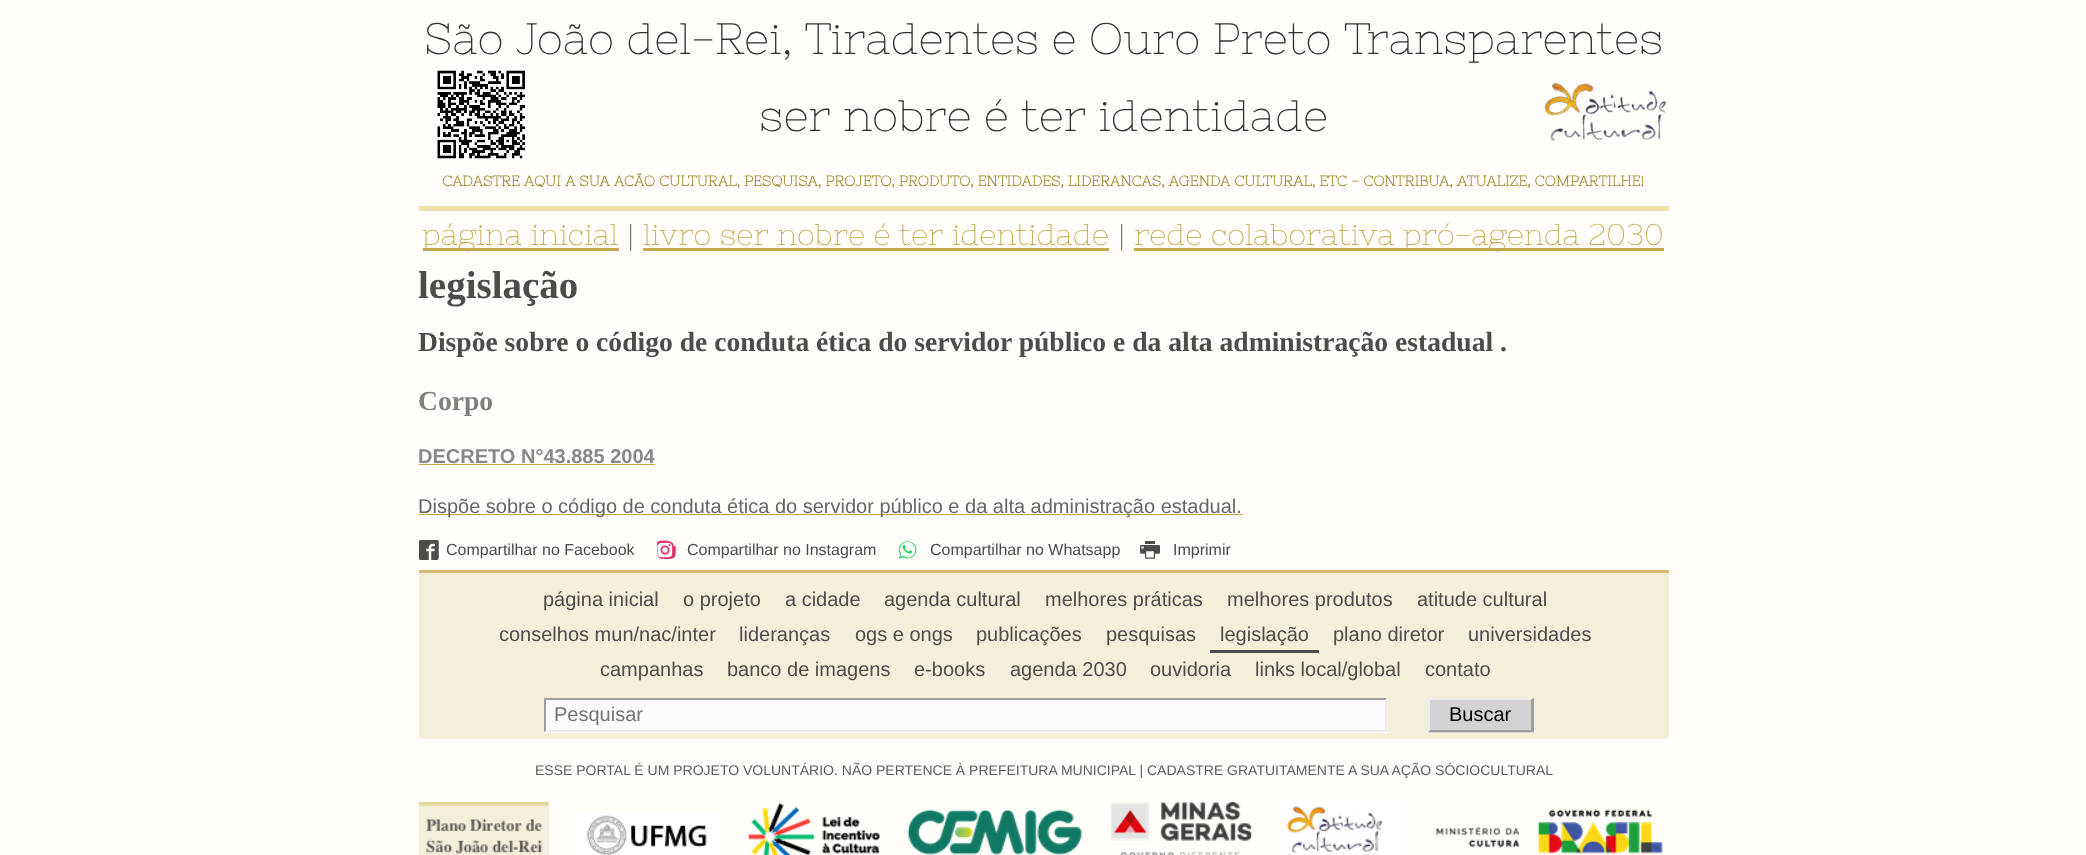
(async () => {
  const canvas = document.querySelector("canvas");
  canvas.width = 2086;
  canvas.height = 855;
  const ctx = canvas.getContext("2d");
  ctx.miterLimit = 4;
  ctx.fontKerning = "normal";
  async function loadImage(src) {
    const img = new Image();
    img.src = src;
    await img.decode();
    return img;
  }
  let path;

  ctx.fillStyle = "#fffefa";
  ctx.fillRect(0, 0, 2086, 855);
  ctx.fillStyle = "#eee1a9";
  ctx.fillRect(419, 206, 1250, 5);
  ctx.drawImage(await loadImage("img/1.png"), 437, 70, 88, 89);
  ctx.drawImage(await loadImage("img/2.png"), 1544, 82, 123, 60);
  for (const [x, y, w, h, color] of [
    [423, 248, 196, 3, "#c6a74b"],
    [643, 248, 466, 3, "#c6a74b"],
    [1134, 248, 530, 3, "#c6a74b"],
    [419, 464, 236, 1, "#c6a74b"],
    [419, 514, 824, 1, "#c6a74b"],
  ]) {
    ctx.fillStyle = color;
    ctx.fillRect(x, y, w, h);
  }
  ctx.drawImage(await loadImage("img/3.png"), 419, 540, 20, 20);
  ctx.drawImage(await loadImage("img/4.png"), 657, 540, 19, 19);
  ctx.drawImage(await loadImage("img/5.png"), 898, 541, 19, 18);
  ctx.drawImage(await loadImage("img/6.png"), 1140, 541, 20, 18);
  for (const [x, y, w, h, color] of [
    [419, 573, 1250, 166, "#f4efd9"],
    [419, 570, 1250, 3, "#d9b672"],
    [1210, 650, 109, 3, "#4c4c4c"],
    [544, 698, 844, 35, "#fbfbfb"],
  ]) {
    ctx.fillStyle = color;
    ctx.fillRect(x, y, w, h);
  }
  ctx.fillStyle = "#9d9d9d";
  path = new Path2D("M544 698H1388L1385 700H546Z");
  ctx.fill(path);
  ctx.fillStyle = "#ececec";
  path = new Path2D("M1387.5 697.5V732.5L1385 730V700Z");
  ctx.fill(path);
  path = new Path2D("M1388 732H544L546 730H1385Z");
  ctx.fill(path);
  ctx.fillStyle = "#9d9d9d";
  path = new Path2D("M544 732.5V697.5L546 700V730Z");
  ctx.fill(path);
  ctx.fillStyle = "#d3d3d3";
  ctx.fillRect(1428, 698, 106, 35);
  ctx.fillStyle = "#ececec";
  path = new Path2D("M1428 698H1534L1531 700H1430Z");
  ctx.fill(path);
  ctx.fillStyle = "#9d9d9d";
  path = new Path2D("M1534 697.5V732.5L1531 730V700Z");
  ctx.fill(path);
  path = new Path2D("M1534 732H1428L1430 730H1531Z");
  ctx.fill(path);
  ctx.fillStyle = "#ececec";
  path = new Path2D("M1427.5 732.5V697.5L1430 700V730Z");
  ctx.fill(path);
  ctx.drawImage(await loadImage("img/7.png"), 418, 802, 131, 53);
  ctx.drawImage(await loadImage("img/8.png"), 577, 811, 143, 44);
  ctx.drawImage(await loadImage("img/9.png"), 748, 803, 132, 52);
  ctx.drawImage(await loadImage("img/10.png"), 907, 809, 176, 46);
  ctx.drawImage(await loadImage("img/11.png"), 1111, 802, 141, 53);
  ctx.drawImage(await loadImage("img/12.png"), 1279, 801, 124, 54);
  ctx.drawImage(await loadImage("img/13.png"), 1436, 809, 227, 45);
  ctx.font = "44px Nixie One";
  ctx.fillStyle = "#333332";
  ctx.fillText("São João del-Rei, Tiradentes e Ouro Preto Transparentes", 424, 54);
  ctx.fillText("ser nobre é ter identidade", 759, 131);
  ctx.font = "bold 14.4px Nixie One";
  ctx.fillStyle = "#9e8528";
  ctx.fillText("CADASTRE AQUI A SUA AÇÃO CULTURAL, PESQUISA, PROJETO, PRODUTO, ENTIDADES, LIDERANÇAS, AGENDA CULTURAL, ETC - CONTRIBUA, ATUALIZE, COMPARTILHE!", 442, 186);
  ctx.font = "30.1px Nixie One";
  ctx.fillStyle = "#c6a74b";
  ctx.fillText("página inicial", 422, 245);
  ctx.fillStyle = "#4c4c4c";
  ctx.fillText("|", 627, 245);
  ctx.fillStyle = "#c6a74b";
  ctx.fillText("livro ser nobre é ter identidade", 643, 245);
  ctx.fillStyle = "#4c4c4c";
  ctx.fillText("|", 1118, 245);
  ctx.fillStyle = "#c6a74b";
  ctx.fillText("rede colaborativa pró-agenda 2030", 1134, 245);
  ctx.font = "bold 39px Liberation Serif";
  ctx.fillStyle = "#4c4c4c";
  ctx.fillText("legislação", 418, 298);
  ctx.font = "bold 27.6px Liberation Serif";
  ctx.fillText("Dispõe sobre o código de conduta ética do servidor público e da alta administração estadual .", 418, 351);
  ctx.fillStyle = "#808080";
  ctx.fillText("Corpo", 418, 410);
  ctx.font = "bold 20px Liberation Sans";
  ctx.fillStyle = "#888888";
  ctx.fillText("DECRETO N°43.885 2004", 418, 463);
  ctx.font = "20px Liberation Sans";
  ctx.fillStyle = "#666666";
  ctx.fillText("Dispõe sobre o código de conduta ética do servidor público e da alta administração estadual.", 418, 513);
  ctx.font = "16px Liberation Sans";
  ctx.fillStyle = "#4c4c4c";
  for (const [text, x, y] of [
    ["Compartilhar no Facebook", 446, 555],
    ["Compartilhar no Instagram", 687, 555],
    ["Compartilhar no Whatsapp", 930, 555],
    ["Imprimir", 1173, 555],
  ]) {
    ctx.fillText(text, x, y);
  }
  ctx.font = "20px Liberation Sans";
  for (const [text, x, y] of [
    ["página inicial", 543, 606],
    ["o projeto", 683, 606],
    ["a cidade", 785, 606],
    ["agenda cultural", 884, 606],
    ["melhores práticas", 1045, 606],
    ["melhores produtos", 1227, 606],
    ["atitude cultural", 1417, 606],
    ["conselhos mun/nac/inter", 499, 641],
    ["lideranças", 739, 641],
    ["ogs e ongs", 855, 641],
    ["publicações", 976, 641],
    ["pesquisas", 1106, 641],
    ["legislação", 1220, 641],
    ["plano diretor", 1333, 641],
    ["universidades", 1468, 641],
    ["campanhas", 600, 676],
    ["banco de imagens", 727, 676],
    ["e-books", 914, 676],
    ["agenda 2030", 1010, 676],
    ["ouvidoria", 1150, 676],
    ["links local/global", 1255, 676],
    ["contato", 1425, 676],
  ]) {
    ctx.fillText(text, x, y);
  }
  ctx.fillStyle = "#757575";
  ctx.fillText("Pesquisar", 554, 721);
  ctx.fillStyle = "#000000";
  ctx.fillText("Buscar", 1449, 721);
  ctx.font = "14px Liberation Sans";
  ctx.fillStyle = "#5c5c5c";
  ctx.fillText("ESSE PORTAL É UM PROJETO VOLUNTÁRIO. NÃO PERTENCE À PREFEITURA MUNICIPAL | CADASTRE GRATUITAMENTE A SUA AÇÃO SÓCIOCULTURAL", 535, 775);
})();
